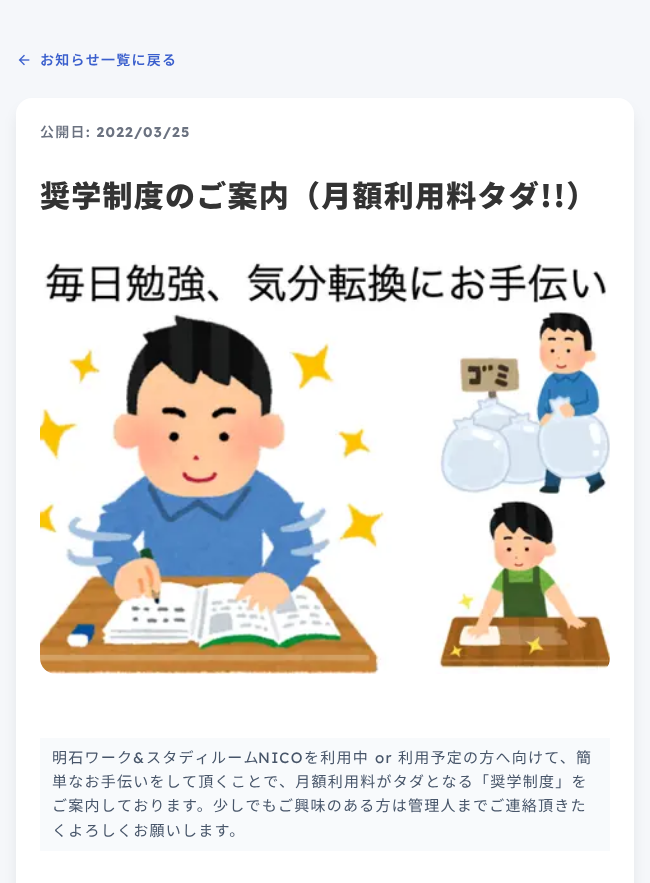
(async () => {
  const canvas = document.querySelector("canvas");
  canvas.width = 650;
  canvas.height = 883;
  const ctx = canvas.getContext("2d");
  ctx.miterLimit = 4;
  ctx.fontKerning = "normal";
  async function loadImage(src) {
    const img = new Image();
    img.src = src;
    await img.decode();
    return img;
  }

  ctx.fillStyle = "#f5f7fa";
  ctx.fillRect(0, 0, 650, 883);
  ctx.drawImage(await loadImage("img/1.png"), 18, 54, 12, 12);
  ctx.fillStyle = "rgba(0, 0, 0, 0.1)";
  ctx.filter = "blur(7.5px)";
  ctx.beginPath();
  ctx.roundRect(19, 111, 612, 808, 13);
  ctx.fill();
  ctx.filter = "none";
  ctx.fillStyle = "#ffffff";
  ctx.beginPath();
  ctx.roundRect(16, 98, 618, 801, 16);
  ctx.fill();
  ctx.drawImage(await loadImage("img/2.png"), 40, 261, 570, 413);
  ctx.fillStyle = "#f8fafc";
  ctx.fillRect(40, 738, 570, 113);
  ctx.letterSpacing = "1.25px";
  ctx.font = "600 14px Noto Sans JP";
  ctx.fillStyle = "#3a5fcd";
  ctx.fillText("お知らせ一覧に戻る", 40, 65);
  ctx.fillStyle = "#6b7280";
  ctx.fillText("公開日", 40, 137);
  ctx.font = "bold 14px Lexend";
  ctx.fillText(": 2022/03/25", 86, 137);
  ctx.font = "900 30px Noto Sans JP";
  ctx.fillStyle = "#333333";
  ctx.fillText("奨学制度のご案内（月額利用料タダ!!）", 40, 207);
  ctx.font = "15px Noto Sans JP";
  ctx.fillStyle = "#475569";
  ctx.fillText("明石ワーク", 52, 763);
  ctx.font = "15px Lexend";
  ctx.fillText("&", 133, 763);
  ctx.font = "15px Noto Sans JP";
  ctx.fillText("スタディルーム", 146, 763);
  ctx.font = "15px Lexend";
  ctx.fillText("NICO", 258, 763);
  ctx.font = "15px Noto Sans JP";
  ctx.fillText("を利用中", 304, 763);
  ctx.font = "15px Lexend";
  ctx.fillText("or", 375, 763);
  ctx.font = "15px Noto Sans JP";
  for (const [text, x, y] of [
    ["利用予定の方へ向けて、簡", 398, 763],
    ["単なお手伝いをして頂くことで、月額利用料がタダとなる「奨学制度」を", 52, 787],
    ["ご案内しております。少しでもご興味のある方は管理人までご連絡頂きた", 52, 811],
    ["くよろしくお願いします。", 52, 836],
  ]) {
    ctx.fillText(text, x, y);
  }
})();
